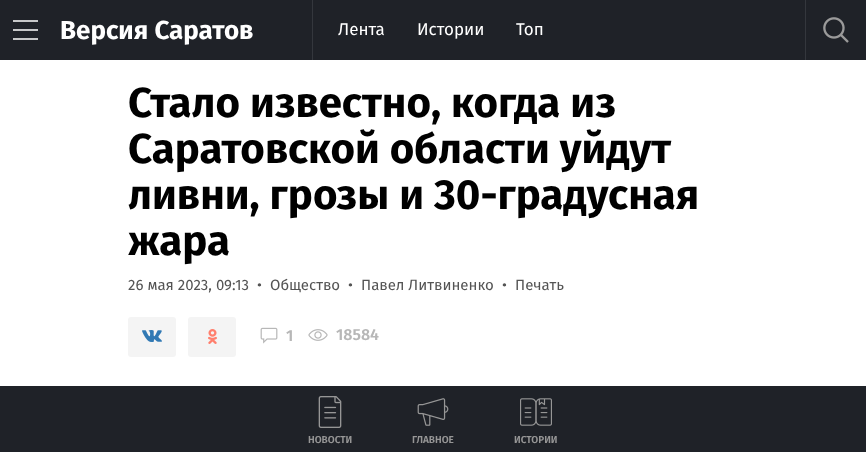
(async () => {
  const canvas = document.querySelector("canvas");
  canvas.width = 866;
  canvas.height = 452;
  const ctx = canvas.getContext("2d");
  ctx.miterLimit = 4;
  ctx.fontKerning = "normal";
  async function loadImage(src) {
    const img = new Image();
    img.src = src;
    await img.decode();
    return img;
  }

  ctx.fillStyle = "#ffffff";
  ctx.fillRect(0, 0, 866, 452);
  for (const [x, y, w, h, color] of [
    [0, 0, 866, 60, "#1f2228"],
    [13, 29, 25, 2, "#c7c8c9"],
    [13, 20, 25, 2, "#c7c8c9"],
    [13, 38, 25, 2, "#c7c8c9"],
    [312, 0, 1, 60, "#34373d"],
    [805, 0, 1, 60, "#34373d"],
  ]) {
    ctx.fillStyle = color;
    ctx.fillRect(x, y, w, h);
  }
  ctx.drawImage(await loadImage("img/1.png"), 823, 17, 26, 26);
  ctx.fillStyle = "#f4f4f4";
  ctx.beginPath();
  ctx.roundRect(128, 317, 48, 40, 3);
  ctx.fill();
  ctx.drawImage(await loadImage("img/2.png"), 142, 330, 20, 12);
  ctx.beginPath();
  ctx.roundRect(188, 317, 48, 40, 3);
  ctx.fill();
  ctx.drawImage(await loadImage("img/3.png"), 208, 329, 9, 15);
  ctx.drawImage(await loadImage("img/4.png"), 260, 327, 18, 17);
  ctx.drawImage(await loadImage("img/5.png"), 308, 329, 20, 12);
  ctx.fillStyle = "#1f2228";
  ctx.fillRect(0, 386, 866, 66);
  ctx.drawImage(await loadImage("img/6.png"), 318, 396, 24, 32);
  ctx.drawImage(await loadImage("img/7.png"), 417, 398, 32, 28);
  ctx.drawImage(await loadImage("img/8.png"), 520, 398, 32, 28);
  ctx.font = "bold 26px Fira Sans";
  ctx.fillStyle = "#ffffff";
  ctx.fillText("Версия Саратов", 60, 39);
  ctx.font = "17px Fira Sans";
  for (const [text, x, y] of [
    ["Лента", 338, 35],
    ["Истории", 417, 35],
    ["Топ", 516, 35],
  ]) {
    ctx.fillText(text, x, y);
  }
  ctx.font = "bold 42px Fira Sans";
  ctx.fillStyle = "#000000";
  for (const [text, x, y] of [
    ["Стало известно, когда из", 128, 117],
    ["Саратовской области уйдут", 128, 163],
    ["ливни, грозы и 30-градусная", 128, 209],
    ["жара", 128, 255],
  ]) {
    ctx.fillText(text, x, y);
  }
  ctx.font = "15px Fira Sans";
  ctx.fillStyle = "#545454";
  for (const [text, x, y] of [
    ["26 мая 2023, 09:13", 128, 290],
    ["•", 257, 290],
    ["Общество", 270, 290],
    ["•", 348, 290],
    ["Павел Литвиненко", 361, 290],
    ["•", 502, 290],
    ["Печать", 515, 290],
  ]) {
    ctx.fillText(text, x, y);
  }
  ctx.font = "600 16px Fira Sans";
  ctx.fillStyle = "#b7b7b7";
  ctx.fillText("1", 286, 341);
  ctx.fillText("18584", 336, 340);
  ctx.font = "600 10px Fira Sans";
  ctx.fillStyle = "#969696";
  for (const [text, x, y] of [
    ["НОВОСТИ", 308, 443],
    ["ГЛАВНОЕ", 412, 443],
    ["ИСТОРИИ", 514, 443],
  ]) {
    ctx.fillText(text, x, y);
  }
})();
